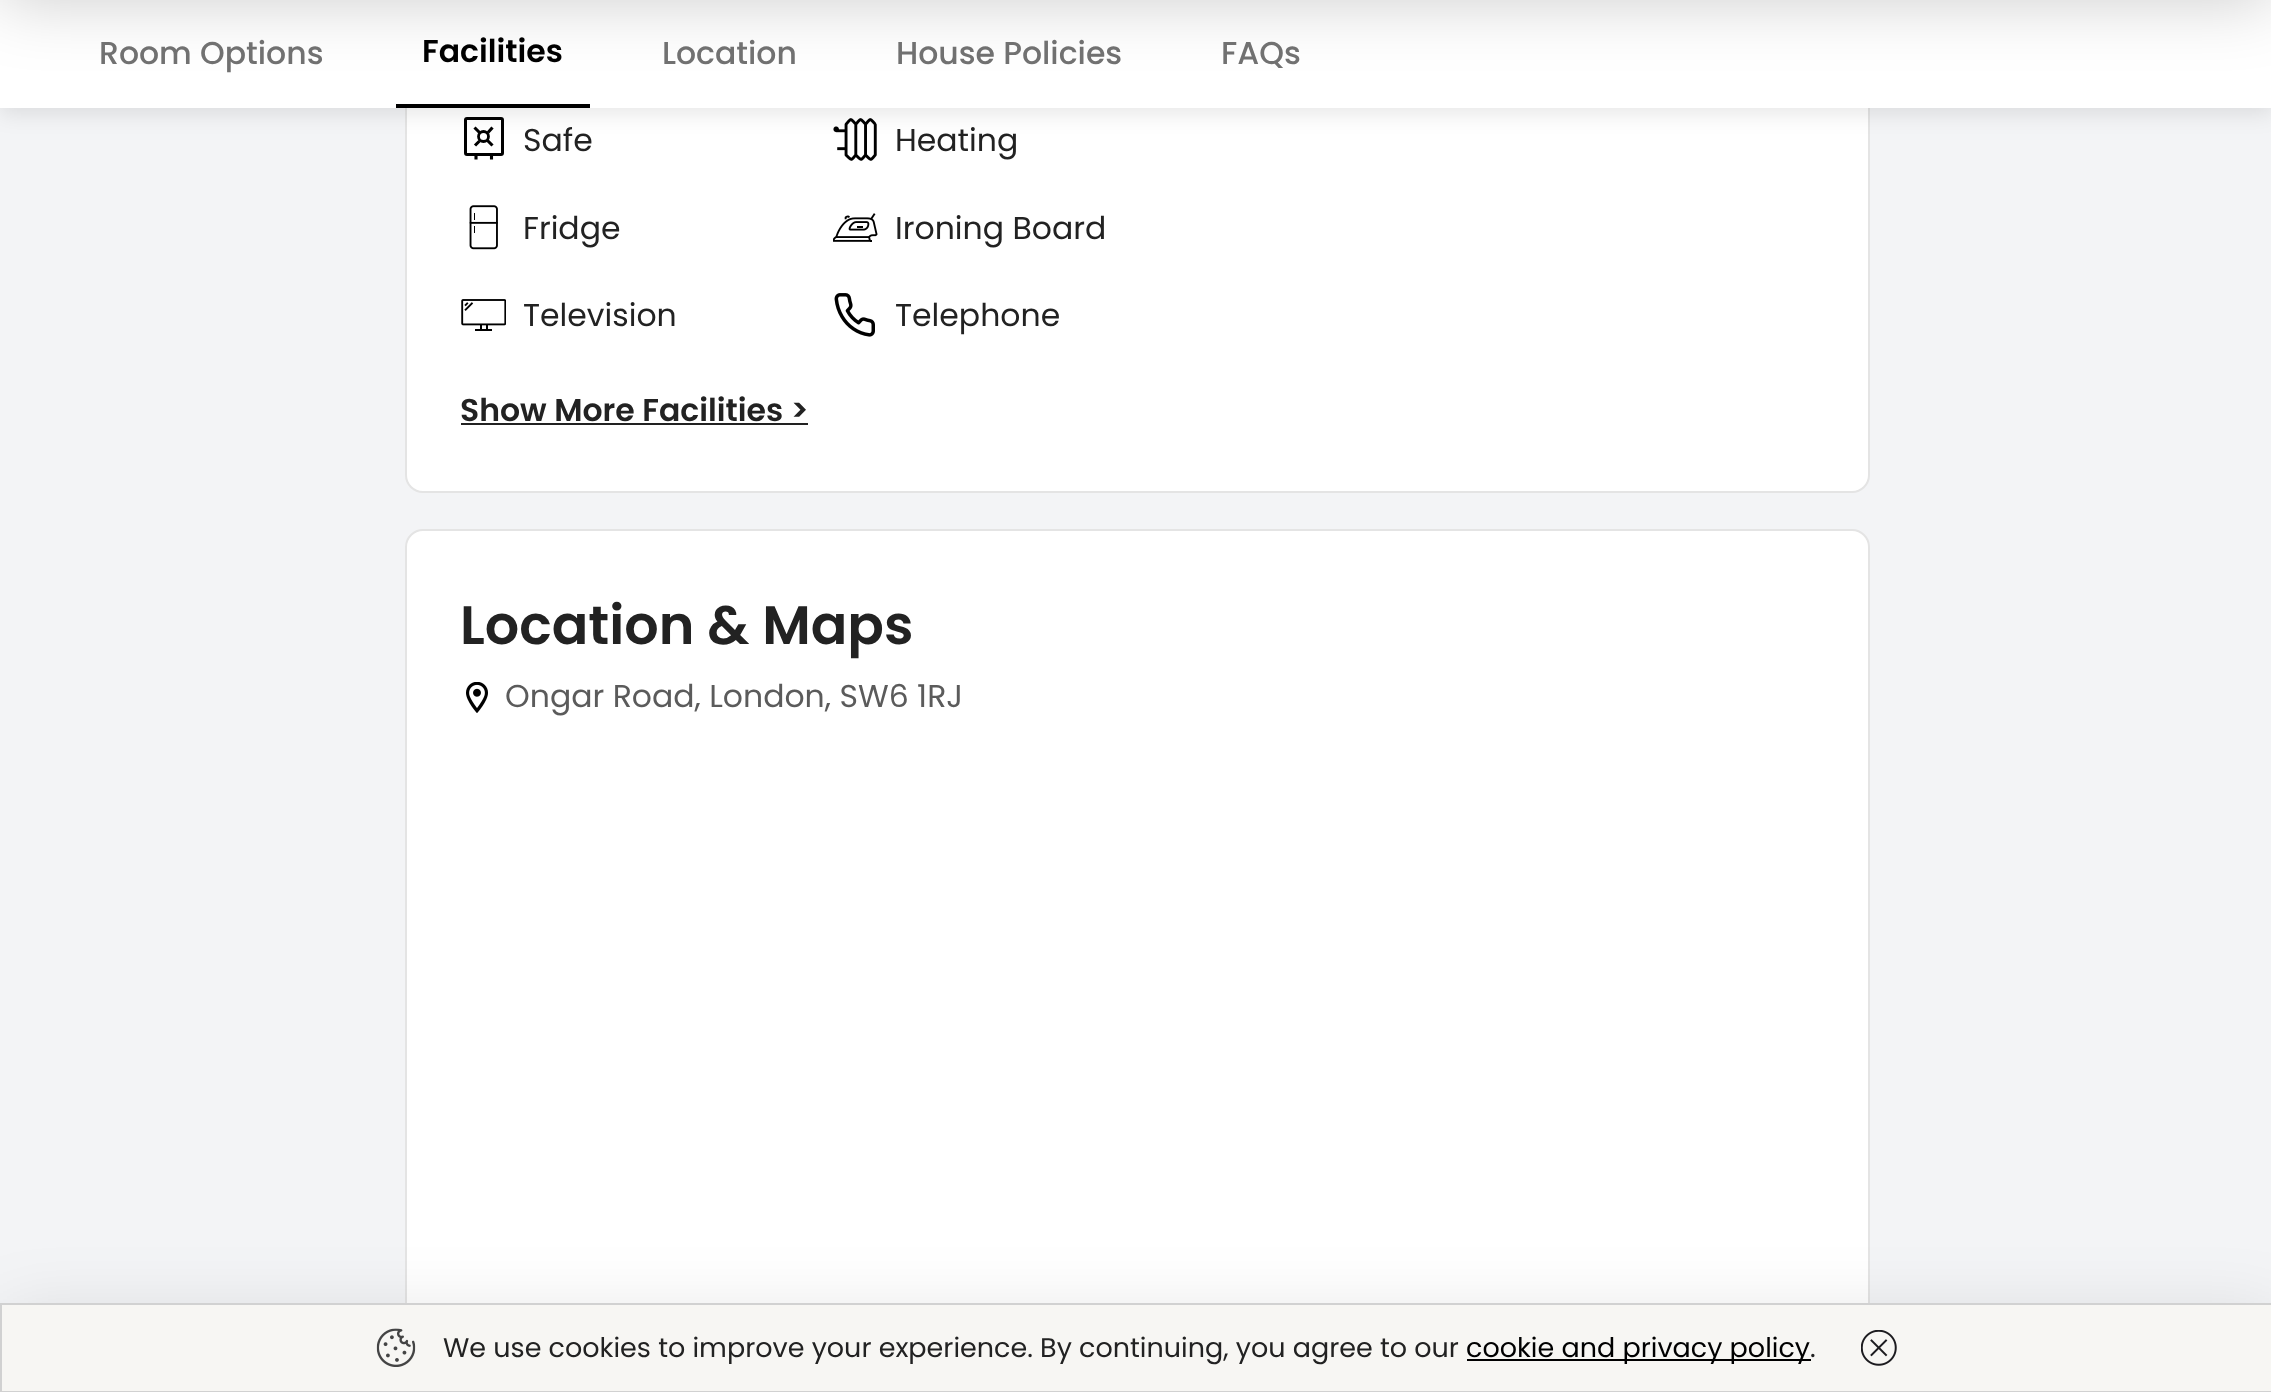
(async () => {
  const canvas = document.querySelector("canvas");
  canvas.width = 2271;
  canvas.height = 1392;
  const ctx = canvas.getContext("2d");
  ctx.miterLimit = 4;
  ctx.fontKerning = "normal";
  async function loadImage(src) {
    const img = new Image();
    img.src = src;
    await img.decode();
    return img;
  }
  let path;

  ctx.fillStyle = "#f3f4f6";
  ctx.fillRect(0, 0, 2271, 1392);
  ctx.fillStyle = "#ffffff";
  ctx.beginPath();
  ctx.roundRect(406, -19, 1463, 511, 17);
  ctx.fill();
  ctx.strokeStyle = "#e4e4e4";
  ctx.lineWidth = 2;
  ctx.stroke();
  ctx.beginPath();
  ctx.roundRect(465.5, 118.5, 37, 36, 1.5);
  ctx.strokeStyle = "#000000";
  ctx.lineWidth = 3;
  ctx.stroke();
  ctx.beginPath();
  ctx.arc(483.5, 136.5, 5, 0, Math.PI * 2);
  ctx.lineWidth = 2.8;
  ctx.stroke();
  path = new Path2D("M479.5 132.5L474.5 127.5M488 132.5L492.5 127.5M487 140L492.5 145.5M479.5 141L475 145.5M476 154.5V159.5M491.5 155V159.5");
  ctx.lineWidth = 3.1;
  ctx.lineJoin = "round";
  ctx.stroke(path);
  ctx.drawImage(await loadImage("img/1.png"), 833, 118, 44, 43);
  ctx.fillStyle = "rgba(0, 0, 0, 0.1)";
  ctx.filter = "blur(11px)";
  ctx.beginPath();
  ctx.rect(0, 5, 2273, 108);
  ctx.fill();
  ctx.filter = "none";
  ctx.fillStyle = "#ffffff";
  ctx.fillRect(0, 0, 2271, 108);
  ctx.fillStyle = "rgba(0, 0, 0, 0.2)";
  ctx.filter = "blur(34px)";
  ctx.beginPath();
  ctx.rect(0, -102, 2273, 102);
  ctx.fill();
  ctx.filter = "none";
  ctx.fillStyle = "#000000";
  ctx.fillRect(396, 104, 194, 4);
  ctx.drawImage(await loadImage("img/2.png"), 469, 205, 29, 45);
  ctx.drawImage(await loadImage("img/3.png"), 833, 213, 45, 29);
  ctx.drawImage(await loadImage("img/4.png"), 461, 299, 45, 32);
  ctx.drawImage(await loadImage("img/5.png"), 834, 293, 41, 44);
  ctx.fillStyle = "#222222";
  ctx.fillRect(461, 423, 347, 2);
  ctx.fillStyle = "#ffffff";
  ctx.beginPath();
  ctx.roundRect(406, 530, 1463, 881, 17);
  ctx.fill();
  ctx.strokeStyle = "#e4e4e4";
  ctx.lineWidth = 2;
  ctx.lineJoin = "miter";
  ctx.stroke();
  ctx.drawImage(await loadImage("img/6.png"), 466, 682, 22, 31);
  ctx.fillStyle = "rgba(0, 0, 0, 0.1)";
  ctx.filter = "blur(34px)";
  ctx.beginPath();
  ctx.rect(5, 1312, 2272, 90);
  ctx.fill();
  ctx.filter = "none";
  ctx.fillStyle = "#f7f6f3";
  ctx.beginPath();
  ctx.rect(1, 1304, 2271, 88);
  ctx.fill();
  ctx.strokeStyle = "#d1d1d1";
  ctx.stroke();
  ctx.drawImage(await loadImage("img/7.png"), 376, 1328, 40, 39);
  ctx.fillStyle = "#000000";
  ctx.fillRect(1467, 1359, 344, 2);
  ctx.drawImage(await loadImage("img/8.png"), 1861, 1330, 36, 36);
  ctx.font = "500 31.5px Poppins";
  ctx.fillStyle = "#717171";
  ctx.fillText("Room Options", 99, 64);
  ctx.font = "600 31.5px Poppins";
  ctx.fillStyle = "#000000";
  ctx.fillText("Facilities", 422, 62);
  ctx.font = "500 31.5px Poppins";
  ctx.fillStyle = "#717171";
  for (const [text, x, y] of [
    ["Location", 662, 64],
    ["House Policies", 896, 64],
    ["FAQs", 1221, 64],
  ]) {
    ctx.fillText(text, x, y);
  }
  ctx.font = "31.5px Poppins";
  ctx.fillStyle = "#222222";
  for (const [text, x, y] of [
    ["Safe", 523, 151],
    ["Heating", 895, 151],
    ["Fridge", 523, 239],
    ["Ironing Board", 895, 239],
    ["Television", 523, 326],
    ["Telephone", 895, 326],
  ]) {
    ctx.fillText(text, x, y);
  }
  ctx.font = "600 31.5px Poppins";
  ctx.fillText("Show More Facilities >", 460, 421);
  ctx.font = "600 54px Poppins";
  ctx.fillText("Location & Maps", 460, 644);
  ctx.font = "31.5px Poppins";
  ctx.fillStyle = "#5b5b5b";
  ctx.fillText("Ongar Road, London, SW6 1RJ", 505, 707);
  ctx.font = "27px Poppins";
  ctx.fillStyle = "#222222";
  ctx.fillText("We use cookies to improve your experience. By continuing, you agree to our", 443, 1357);
  ctx.fillStyle = "#000000";
  ctx.fillText("cookie and privacy policy", 1466, 1357);
  ctx.fillStyle = "#222222";
  ctx.fillText(".", 1810, 1357);
})();
